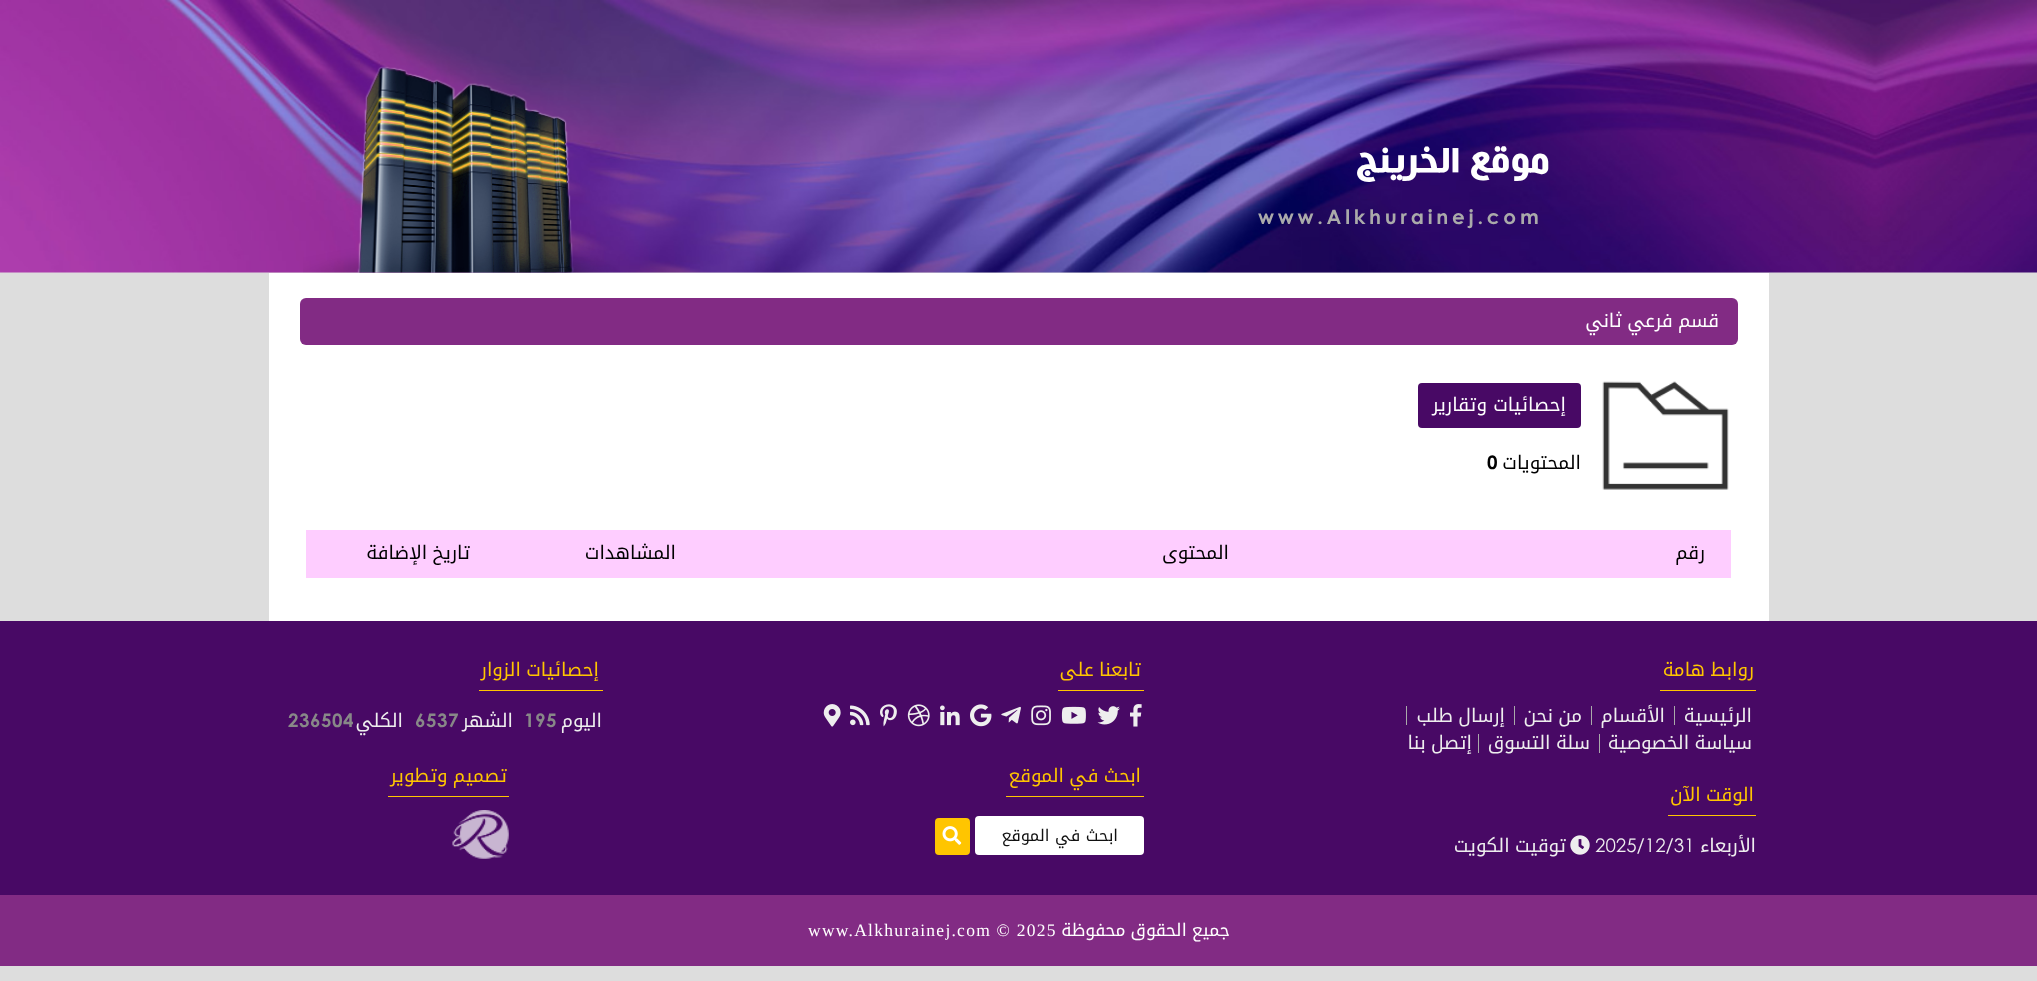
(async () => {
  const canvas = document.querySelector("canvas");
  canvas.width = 2037;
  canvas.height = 981;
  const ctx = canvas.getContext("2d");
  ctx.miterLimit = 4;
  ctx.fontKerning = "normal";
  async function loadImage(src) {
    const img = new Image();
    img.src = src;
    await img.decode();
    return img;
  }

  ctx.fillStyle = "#dddddd";
  ctx.fillRect(0, 0, 2037, 981);
  ctx.drawImage(await loadImage("img/1.png"), 0, 0, 2037, 273);
  ctx.drawImage(await loadImage("img/2.png"), 303, 66, 317, 207);
  ctx.fillStyle = "#ffffff";
  ctx.fillRect(269, 273, 1500, 348);
  ctx.fillStyle = "#822b84";
  ctx.beginPath();
  ctx.roundRect(300, 298, 1438, 47, 6);
  ctx.fill();
  ctx.drawImage(await loadImage("img/3.png"), 1602, 381, 127, 109);
  ctx.fillStyle = "#480965";
  ctx.beginPath();
  ctx.roundRect(1418, 383, 163, 45, 4);
  ctx.fill();
  for (const [x, y, w, h, color] of [
    [306, 530, 1425, 48, "#fecdff"],
    [0, 621, 2037, 274, "#480965"],
    [1660, 690, 96, 1, "#ffc500"],
    [1674, 706, 1, 19, "#aaaaaa"],
    [1591, 706, 1, 19, "#aaaaaa"],
    [1514, 706, 1, 19, "#aaaaaa"],
    [1406, 706, 1, 19, "#aaaaaa"],
    [1599, 734, 1, 19, "#aaaaaa"],
    [1478, 734, 1, 19, "#aaaaaa"],
    [1058, 690, 86, 1, "#ffc500"],
  ]) {
    ctx.fillStyle = color;
    ctx.fillRect(x, y, w, h);
  }
  ctx.drawImage(await loadImage("img/4.png"), 1130, 704, 12, 23);
  ctx.drawImage(await loadImage("img/5.png"), 1097, 706, 23, 19);
  ctx.drawImage(await loadImage("img/6.png"), 1061, 706, 25, 18);
  ctx.drawImage(await loadImage("img/7.png"), 1031, 705, 20, 21);
  ctx.drawImage(await loadImage("img/8.png"), 1001, 706, 20, 18);
  ctx.drawImage(await loadImage("img/9.png"), 970, 704, 22, 23);
  ctx.drawImage(await loadImage("img/10.png"), 940, 705, 20, 21);
  ctx.drawImage(await loadImage("img/11.png"), 907, 704, 23, 23);
  ctx.drawImage(await loadImage("img/12.png"), 880, 704, 17, 23);
  ctx.drawImage(await loadImage("img/13.png"), 850, 705, 20, 21);
  ctx.drawImage(await loadImage("img/14.png"), 823, 704, 18, 23);
  ctx.fillRect(479, 690, 124, 1);
  ctx.fillRect(1668, 815, 88, 1);
  ctx.drawImage(await loadImage("img/15.png"), 1570, 835, 20, 20);
  ctx.fillRect(1006, 796, 138, 1);
  ctx.fillStyle = "#ffffff";
  ctx.beginPath();
  ctx.roundRect(975, 816, 169, 39, 4);
  ctx.fill();
  ctx.fillStyle = "#ffc500";
  ctx.beginPath();
  ctx.roundRect(935, 818, 35, 37, 4);
  ctx.fill();
  ctx.drawImage(await loadImage("img/16.png"), 942, 826, 20, 19);
  ctx.fillRect(388, 796, 121, 1);
  ctx.drawImage(await loadImage("img/17.png"), 452, 810, 57, 49);
  ctx.fillStyle = "#822b84";
  ctx.fillRect(0, 895, 2037, 71);
  ctx.direction = "rtl";
  ctx.font = "37.5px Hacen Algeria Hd";
  ctx.fillStyle = "#ffffff";
  ctx.fillText("موقع الخرينج", 1550, 174);
  ctx.letterSpacing = "3.75px";
  ctx.direction = "ltr";
  ctx.font = "bold 20px Century Gothic";
  ctx.fillStyle = "#aaaaaa";
  ctx.fillText("www.Alkhurainej.com", 1258, 224);
  ctx.letterSpacing = "0px";
  ctx.wordSpacing = "-1px";
  ctx.direction = "rtl";
  ctx.font = "18.75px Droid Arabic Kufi";
  ctx.fillStyle = "#ffffff";
  ctx.fillText("قسم فرعي ثاني", 1719, 327);
  ctx.wordSpacing = "0px";
  ctx.fillText("إحصائيات وتقارير", 1566, 411);
  ctx.fillStyle = "#000000";
  ctx.fillText("المحتويات", 1581, 469);
  ctx.letterSpacing = "0.5px";
  ctx.direction = "ltr";
  ctx.font = "bold 18.75px Century Gothic";
  ctx.fillText("0", 1487, 469);
  ctx.letterSpacing = "0px";
  ctx.direction = "rtl";
  ctx.font = "18.75px Droid Arabic Kufi";
  for (const [text, x, y] of [
    ["رقم", 1705, 559],
    ["المحتوى", 1229, 559],
    ["المشاهدات", 676, 559],
  ]) {
    ctx.fillText(text, x, y);
  }
  ctx.wordSpacing = "-1px";
  ctx.fillText("تاريخ الإضافة", 470, 559);
  ctx.fillStyle = "#ffc500";
  ctx.fillText("روابط هامة", 1754, 676);
  ctx.wordSpacing = "0px";
  ctx.fillStyle = "#eeeeee";
  ctx.fillText("الرئيسية", 1752, 722);
  ctx.fillText("الأقسام", 1665, 722);
  ctx.wordSpacing = "-1px";
  for (const [text, x, y] of [
    ["من نحن", 1582, 722],
    ["إرسال طلب", 1505, 722],
    ["سياسة الخصوصية", 1752, 749],
    ["سلة التسوق", 1590, 749],
    ["إتصل بنا", 1472, 749],
  ]) {
    ctx.fillText(text, x, y);
  }
  ctx.fillStyle = "#ffc500";
  ctx.fillText("تابعنا على", 1141, 676);
  ctx.fillText("إحصائيات الزوار", 599, 676);
  ctx.wordSpacing = "0px";
  ctx.fillStyle = "#eeeeee";
  ctx.fillText("اليوم", 602, 727);
  ctx.letterSpacing = "0.5px";
  ctx.direction = "ltr";
  ctx.font = "bold 18.75px Century Gothic";
  ctx.fillStyle = "#888888";
  ctx.fillText("195", 524, 727);
  ctx.letterSpacing = "0px";
  ctx.direction = "rtl";
  ctx.font = "18.75px Droid Arabic Kufi";
  ctx.fillStyle = "#eeeeee";
  ctx.fillText("الشهر", 513, 727);
  ctx.letterSpacing = "0.5px";
  ctx.direction = "ltr";
  ctx.font = "bold 18.75px Century Gothic";
  ctx.fillStyle = "#888888";
  ctx.fillText("6537", 415, 727);
  ctx.letterSpacing = "0px";
  ctx.direction = "rtl";
  ctx.font = "18.75px Droid Arabic Kufi";
  ctx.fillStyle = "#eeeeee";
  ctx.fillText("الكلي", 403, 727);
  ctx.letterSpacing = "0.5px";
  ctx.direction = "ltr";
  ctx.font = "bold 18.75px Century Gothic";
  ctx.fillStyle = "#888888";
  ctx.fillText("236504", 288, 727);
  ctx.letterSpacing = "0px";
  ctx.wordSpacing = "-1px";
  ctx.direction = "rtl";
  ctx.font = "18.75px Droid Arabic Kufi";
  ctx.fillStyle = "#ffc500";
  ctx.fillText("الوقت الآن", 1754, 801);
  ctx.wordSpacing = "0px";
  ctx.fillStyle = "#eeeeee";
  ctx.fillText("الأربعاء", 1756, 852);
  ctx.direction = "ltr";
  ctx.font = "18.75px Century Gothic";
  ctx.fillText("2025/12/31", 1595, 852);
  ctx.wordSpacing = "-1px";
  ctx.direction = "rtl";
  ctx.font = "18.75px Droid Arabic Kufi";
  ctx.fillText("توقيت الكويت", 1566, 852);
  ctx.fillStyle = "#ffc500";
  ctx.fillText("ابحث في الموقع", 1141, 782);
  ctx.wordSpacing = "0px";
  ctx.font = "16.25px Droid Arabic Kufi";
  ctx.fillStyle = "#111111";
  ctx.fillText("ابحث في الموقع", 1118, 841);
  ctx.wordSpacing = "-1px";
  ctx.font = "18.75px Droid Arabic Kufi";
  ctx.fillStyle = "#ffc500";
  ctx.fillText("تصميم وتطوير", 507, 782);
  ctx.font = "17.5px Droid Arabic Kufi";
  ctx.fillStyle = "#ffffff";
  ctx.fillText("جميع الحقوق محفوظة", 1230, 936);
  ctx.letterSpacing = "1.25px";
  ctx.wordSpacing = "0px";
  ctx.direction = "ltr";
  ctx.font = "17.5px Liberation Serif";
  ctx.fillText("www.Alkhurainej.com © 2025", 808, 936);
})();
